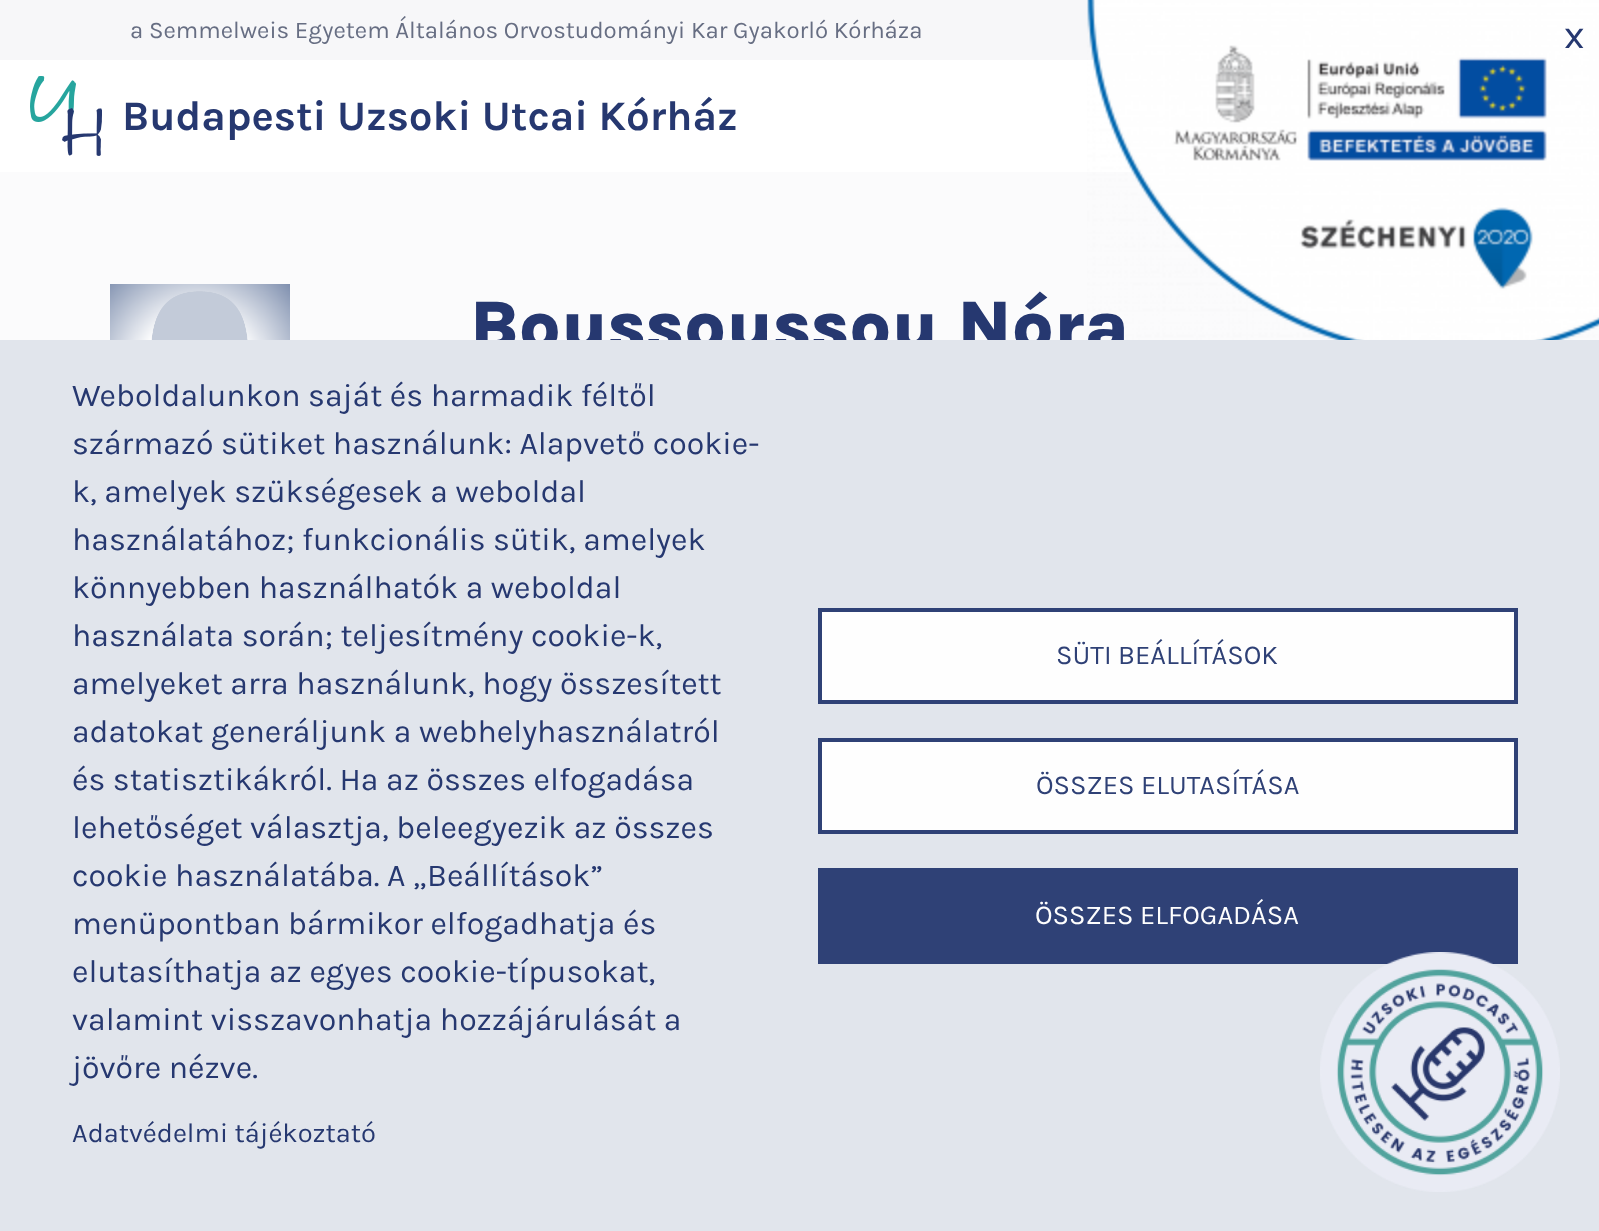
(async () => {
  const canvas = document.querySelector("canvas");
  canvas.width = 1599;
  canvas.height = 1231;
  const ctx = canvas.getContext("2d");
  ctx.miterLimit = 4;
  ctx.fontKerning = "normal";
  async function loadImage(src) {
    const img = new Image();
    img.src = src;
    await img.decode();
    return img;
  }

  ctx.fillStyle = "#fbfbfc";
  ctx.fillRect(0, 0, 1599, 1231);
  ctx.fillStyle = "#f7f7f9";
  ctx.fillRect(0, 0, 1095, 60);
  ctx.fillStyle = "#ffffff";
  ctx.fillRect(0, 60, 1137, 112);
  ctx.drawImage(await loadImage("img/2.png"), 30, 76, 72, 80);
  ctx.drawImage(await loadImage("img/3.png"), 110, 284, 180, 56);
  ctx.font = "24px Karla";
  ctx.fillStyle = "#676e83";
  ctx.fillText("a Semmelweis Egyetem Általános Orvostudományi Kar Gyakorló Kórháza", 130, 38);
  ctx.font = "bold 42px Karla";
  ctx.fillStyle = "#263870";
  ctx.fillText("Budapesti Uzsoki Utcai Kórház", 122, 130);
  ctx.font = "800 72px Karla";
  ctx.fillText("Boussoussou Nóra", 470, 350);
  ctx.fillStyle = "#e1e5ec";
  ctx.fillRect(0, 340, 1599, 891);
  ctx.fillStyle = "#2f4176";
  ctx.fillRect(818, 868, 700, 96);
  ctx.font = "27.25px Karla";
  ctx.fillStyle = "#fefefe";
  ctx.fillText("ÖSSZES ELFOGADÁSA", 1035, 924);
  ctx.beginPath();
  ctx.rect(820, 740, 696, 92);
  ctx.fill();
  ctx.strokeStyle = "#2f4176";
  ctx.lineWidth = 4;
  ctx.stroke();
  ctx.fillStyle = "#2f4176";
  ctx.fillText("ÖSSZES ELUTASÍTÁSA", 1036, 794);
  ctx.fillStyle = "#fefefe";
  ctx.beginPath();
  ctx.rect(820, 610, 696, 92);
  ctx.fill();
  ctx.stroke();
  ctx.fillStyle = "#2f4176";
  ctx.fillText("SÜTI BEÁLLÍTÁSOK", 1056, 664);
  ctx.fillStyle = "#263870";
  ctx.fillText("Adatvédelmi tájékoztató", 72, 1142);
  ctx.font = "32px Karla";
  for (const [text, x, y] of [
    ["jövőre nézve.", 72, 1078],
    ["valamint visszavonhatja hozzájárulását a", 72, 1030],
    ["elutasíthatja az egyes cookie-típusokat,", 72, 982],
    ["menüpontban bármikor elfogadhatja és", 72, 934],
    ["cookie használatába. A „Beállítások”", 72, 886],
    ["lehetőséget választja, beleegyezik az összes", 72, 838],
    ["és statisztikákról. Ha az összes elfogadása", 72, 790],
    ["adatokat generáljunk a webhelyhasználatról", 72, 742],
    ["amelyeket arra használunk, hogy összesített", 72, 694],
    ["használata során; teljesítmény cookie-k,", 72, 646],
    ["könnyebben használhatók a weboldal", 72, 598],
    ["használatához; funkcionális sütik, amelyek", 72, 550],
    ["k, amelyek szükségesek a weboldal", 72, 502],
    ["származó sütiket használunk: Alapvető cookie-", 72, 454],
    ["Weboldalunkon saját és harmadik féltől", 72, 406],
  ]) {
    ctx.fillText(text, x, y);
  }
  ctx.drawImage(await loadImage("img/1.png"), 1087, 0, 512, 340);
  ctx.font = "40px Karla";
  ctx.fillText("x", 1564, 48);
  ctx.drawImage(await loadImage("img/4.png"), 1320, 952, 240, 240);
})();
